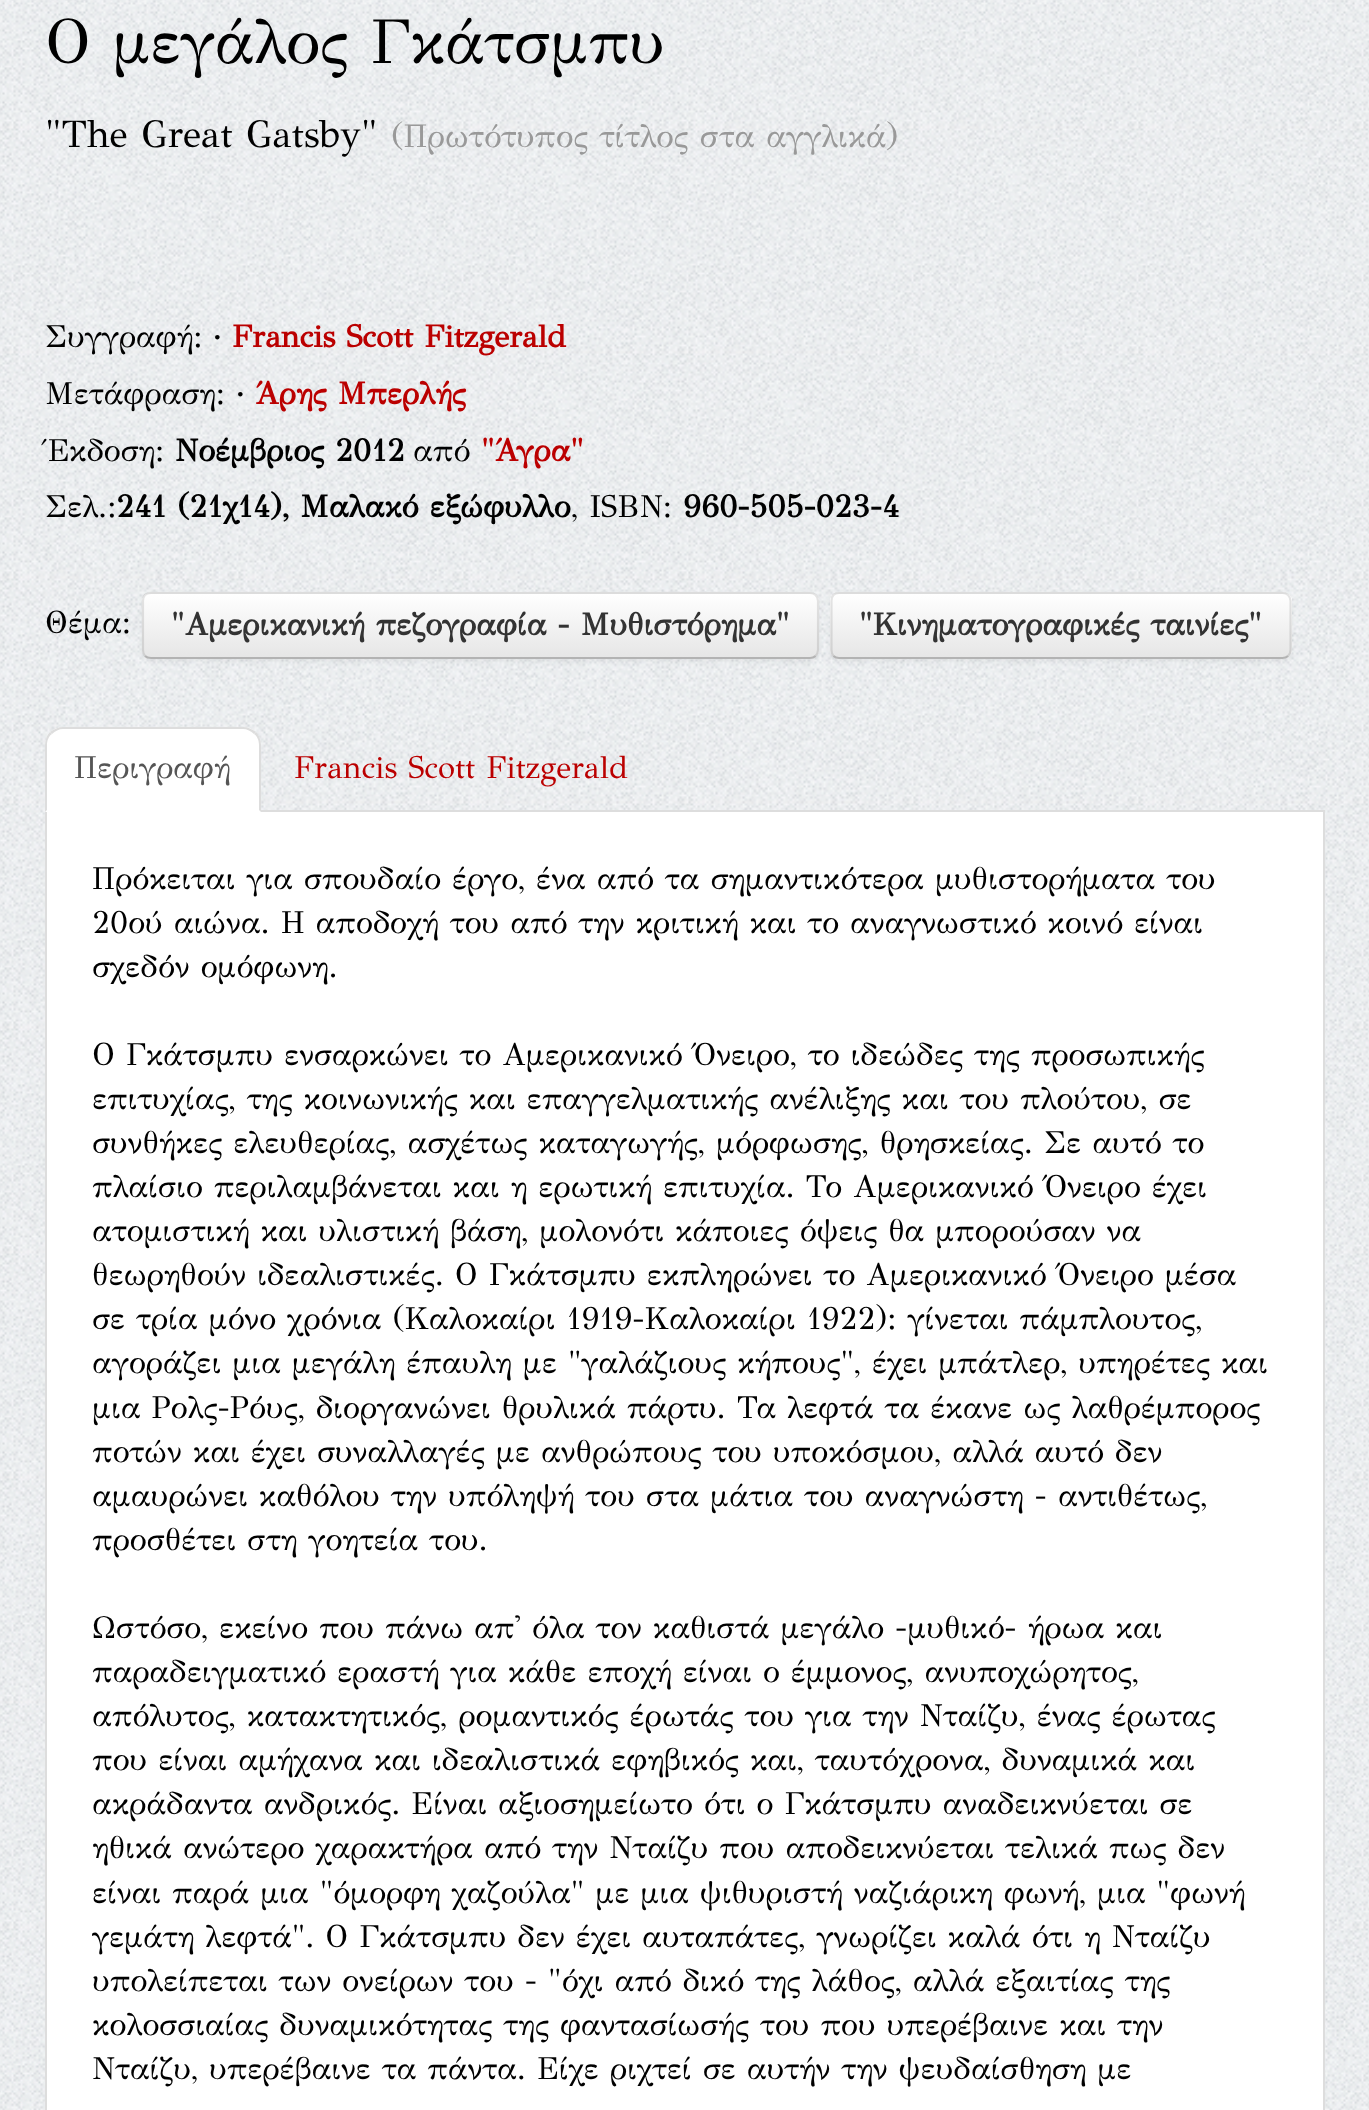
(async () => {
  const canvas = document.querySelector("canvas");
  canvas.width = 1369;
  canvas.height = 2110;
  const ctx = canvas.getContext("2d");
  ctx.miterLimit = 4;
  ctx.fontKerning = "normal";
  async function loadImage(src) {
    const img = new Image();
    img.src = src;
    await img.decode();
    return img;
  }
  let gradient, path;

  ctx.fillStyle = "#ffffff";
  ctx.fillRect(0, 0, 1369, 2110);
  ctx.drawImage(await loadImage("img/1.png"), 0, 0, 1369, 2110);
  ctx.fillStyle = "rgba(0, 0, 0, 0.05)";
  ctx.filter = "blur(2px)";
  ctx.beginPath();
  ctx.roundRect(142, 594, 677, 68, 9);
  ctx.fill();
  ctx.filter = "none";
  ctx.fillStyle = "#f5f5f5";
  ctx.beginPath();
  ctx.roundRect(142, 592, 677, 67, 9);
  ctx.fill();
  ctx.save();
  ctx.beginPath();
  ctx.roundRect(142, 592, 677, 67, 9);
  ctx.clip();
  gradient = ctx.createLinearGradient(480, 594, 480, 657);
  gradient.addColorStop(0, "#ffffff");
  gradient.addColorStop(1, "#e6e6e6");
  ctx.fillStyle = gradient;
  ctx.fillRect(142, 594, 677, 63);
  ctx.restore();
  path = new Path2D("M815.5 656C814 657.5 812 658 810 658H151C148.5 658 146.5 657.5 145 656");
  ctx.strokeStyle = "#b3b3b3";
  ctx.lineWidth = 2.2;
  ctx.stroke(path);
  path = new Path2D("M145 656C143.5 654.5 143 652.5 143 650V601C143 598.5 143.5 596.5 145 595C146.5 593.5 148.5 593 151 593H810C812 593 814 593.5 815.5 595C817 596.5 818 598.5 818 601V650C818 652.5 817 654.5 815.5 656");
  ctx.strokeStyle = "rgba(0, 0, 0, 0.1)";
  ctx.stroke(path);
  ctx.fillStyle = "rgba(0, 0, 0, 0.05)";
  ctx.filter = "blur(2px)";
  ctx.beginPath();
  ctx.roundRect(830, 594, 462, 68, 9);
  ctx.fill();
  ctx.filter = "none";
  ctx.fillStyle = "#f5f5f5";
  ctx.beginPath();
  ctx.roundRect(830, 592, 462, 67, 9);
  ctx.fill();
  ctx.save();
  ctx.beginPath();
  ctx.roundRect(830, 592, 462, 67, 9);
  ctx.clip();
  gradient = ctx.createLinearGradient(1061, 594, 1061, 657);
  gradient.addColorStop(0, "#ffffff");
  gradient.addColorStop(1, "#e6e6e6");
  ctx.fillStyle = gradient;
  ctx.fillRect(830, 594, 462, 63);
  ctx.restore();
  path = new Path2D("M1288 656C1286.5 657.5 1284.5 658 1282.5 658H839C837 658 835 657.5 833.5 656");
  ctx.strokeStyle = "#b3b3b3";
  ctx.stroke(path);
  path = new Path2D("M833.5 656C832 654.5 831.5 652.5 831.5 650V601C831.5 598.5 832 596.5 833.5 595C835 593.5 837 593 839 593H1282.5C1284.5 593 1286.5 593.5 1288 595C1289.5 596.5 1290.5 598.5 1290.5 601V650C1290.5 652.5 1289.5 654.5 1288 656");
  ctx.strokeStyle = "rgba(0, 0, 0, 0.1)";
  ctx.stroke(path);
  ctx.fillStyle = "#dddddd";
  ctx.fillRect(261, 810, 1064, 2);
  ctx.fillStyle = "#ffffff";
  ctx.beginPath();
  ctx.roundRect(45, 727, 216, 85, [18, 18, 0, 0]);
  ctx.fill();
  ctx.fillStyle = "#dddddd";
  path = new Path2D("M63 727C58 727 54 729 50 732L52 734C55 731 59 729 63 729H243C247 729 251 731 254 734L256 732C252 729 248 727 243 727Z");
  ctx.fill(path);
  path = new Path2D("M256 732C259 735 261 740 261 745V812L259 810V745C259 740 257 736 254 734Z");
  ctx.fill(path);
  path = new Path2D("M45 745V812L47 810V745C47 740 49 736 52 734L50 732C47 735 45 740 45 745Z");
  ctx.fill(path);
  ctx.fillStyle = "#ffffff";
  ctx.fillRect(47, 812, 1276, 1298);
  ctx.fillStyle = "#dddddd";
  path = new Path2D("M45 812H1325V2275C1325 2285 1317 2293 1307 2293H63C53 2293 45 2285 45 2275ZM47 812H1323V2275C1323 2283 1316 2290 1307 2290H63C54 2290 47 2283 47 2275Z");
  ctx.fill(path, "evenodd");
  ctx.font = "63px GFS Didot";
  ctx.fillStyle = "#000000";
  ctx.fillText("Ο μεγάλος Γκάτσμπυ", 45, 63);
  ctx.font = "38.25px GFS Didot";
  ctx.fillText("\"The Great Gatsby\"", 45, 147);
  ctx.font = "32.5px GFS Didot";
  ctx.fillStyle = "#999999";
  ctx.fillText("(Πρωτότυπος τίτλος στα αγγλικά)", 391, 147);
  ctx.font = "31.5px GFS Didot";
  ctx.fillStyle = "#000000";
  ctx.fillText("Συγγραφή:", 45, 347);
  ctx.font = "bold 31.5px GFS Didot";
  ctx.fillText("·", 213, 347);
  ctx.fillStyle = "#bb0000";
  ctx.fillText("Francis Scott Fitzgerald", 232, 347);
  ctx.font = "31.5px GFS Didot";
  ctx.fillStyle = "#000000";
  ctx.fillText("Μετάφραση:", 45, 404);
  ctx.font = "bold 31.5px GFS Didot";
  ctx.fillText("·", 236, 404);
  ctx.fillStyle = "#bb0000";
  ctx.fillText("Άρης Μπερλής", 255, 404);
  ctx.font = "31.5px GFS Didot";
  ctx.fillStyle = "#000000";
  ctx.fillText("Έκδοση:", 45, 461);
  ctx.font = "bold 31.5px GFS Didot";
  ctx.fillText("Νοέμβριος 2012", 175, 461);
  ctx.font = "31.5px GFS Didot";
  ctx.fillText("από", 413, 461);
  ctx.font = "bold 31.5px GFS Didot";
  ctx.fillStyle = "#bb0000";
  ctx.fillText("\"Άγρα\"", 481, 461);
  ctx.font = "31.5px GFS Didot";
  ctx.fillStyle = "#000000";
  ctx.fillText("Σελ.:", 45, 517);
  ctx.font = "bold 31.5px GFS Didot";
  ctx.fillText("241 (21χ14), Μαλακό εξώφυλλο", 116, 517);
  ctx.font = "31.5px GFS Didot";
  ctx.fillText(", ISBN:", 571, 517);
  ctx.font = "bold 31.5px GFS Didot";
  ctx.fillText("960-505-023-4", 683, 517);
  ctx.font = "31.5px GFS Didot";
  ctx.fillText("Θέμα:", 45, 633);
  ctx.font = "bold 31.5px GFS Didot";
  ctx.fillStyle = "#333333";
  ctx.fillText("\"Αμερικανική πεζογραφία - Μυθιστόρημα\"", 171, 635);
  ctx.fillText("\"Κινηματογραφικές ταινίες\"", 859, 635);
  ctx.font = "31.5px GFS Didot";
  ctx.fillStyle = "#555555";
  ctx.fillText("Περιγραφή", 74, 778);
  ctx.fillStyle = "#bb0000";
  ctx.fillText("Francis Scott Fitzgerald", 294, 778);
  ctx.fillStyle = "#000000";
  for (const [text, x, y] of [
    ["Πρόκειται για σπουδαίο έργο, ένα από τα σημαντικότερα μυθιστορήματα του", 92, 889],
    ["20ού αιώνα. Η αποδοχή του από την κριτική και το αναγνωστικό κοινό είναι", 92, 933],
    ["σχεδόν ομόφωνη.", 92, 977],
    ["Ο Γκάτσμπυ ενσαρκώνει το Αμερικανικό Όνειρο, το ιδεώδες της προσωπικής", 92, 1065],
    ["επιτυχίας, της κοινωνικής και επαγγελματικής ανέλιξης και του πλούτου, σε", 92, 1109],
    ["συνθήκες ελευθερίας, ασχέτως καταγωγής, μόρφωσης, θρησκείας. Σε αυτό το", 92, 1153],
    ["πλαίσιο περιλαμβάνεται και η ερωτική επιτυχία. Το Αμερικανικό Όνειρο έχει", 92, 1197],
    ["ατομιστική και υλιστική βάση, μολονότι κάποιες όψεις θα μπορούσαν να", 92, 1241],
    ["θεωρηθούν ιδεαλιστικές. Ο Γκάτσμπυ εκπληρώνει το Αμερικανικό Όνειρο μέσα", 92, 1285],
    ["σε τρία μόνο χρόνια (Καλοκαίρι 1919-Καλοκαίρι 1922): γίνεται πάμπλουτος,", 92, 1329],
    ["αγοράζει μια μεγάλη έπαυλη με \"γαλάζιους κήπους\", έχει μπάτλερ, υπηρέτες και", 92, 1373],
    ["μια Ρολς-Ρόυς, διοργανώνει θρυλικά πάρτυ. Τα λεφτά τα έκανε ως λαθρέμπορος", 92, 1418],
    ["ποτών και έχει συναλλαγές με ανθρώπους του υποκόσμου, αλλά αυτό δεν", 92, 1462],
    ["αμαυρώνει καθόλου την υπόληψή του στα μάτια του αναγνώστη - αντιθέτως,", 92, 1506],
    ["προσθέτει στη γοητεία του.", 92, 1550],
    ["Ωστόσο, εκείνο που πάνω απ' όλα τον καθιστά μεγάλο -μυθικό- ήρωα και", 92, 1638],
    ["παραδειγματικό εραστή για κάθε εποχή είναι ο έμμονος, ανυποχώρητος,", 92, 1682],
    ["απόλυτος, κατακτητικός, ρομαντικός έρωτάς του για την Νταίζυ, ένας έρωτας", 92, 1726],
    ["που είναι αμήχανα και ιδεαλιστικά εφηβικός και, ταυτόχρονα, δυναμικά και", 92, 1770],
    ["ακράδαντα ανδρικός. Είναι αξιοσημείωτο ότι ο Γκάτσμπυ αναδεικνύεται σε", 92, 1814],
    ["ηθικά ανώτερο χαρακτήρα από την Νταίζυ που αποδεικνύεται τελικά πως δεν", 92, 1858],
    ["είναι παρά μια \"όμορφη χαζούλα\" με μια ψιθυριστή ναζιάρικη φωνή, μια \"φωνή", 92, 1903],
    ["γεμάτη λεφτά\". Ο Γκάτσμπυ δεν έχει αυταπάτες, γνωρίζει καλά ότι η Νταίζυ", 92, 1947],
    ["υπολείπεται των ονείρων του - \"όχι από δικό της λάθος, αλλά εξαιτίας της", 92, 1991],
    ["κολοσσιαίας δυναμικότητας της φαντασίωσής του που υπερέβαινε και την", 92, 2035],
    ["Νταίζυ, υπερέβαινε τα πάντα. Είχε ριχτεί σε αυτήν την ψευδαίσθηση με", 92, 2079],
  ]) {
    ctx.fillText(text, x, y);
  }
})();
